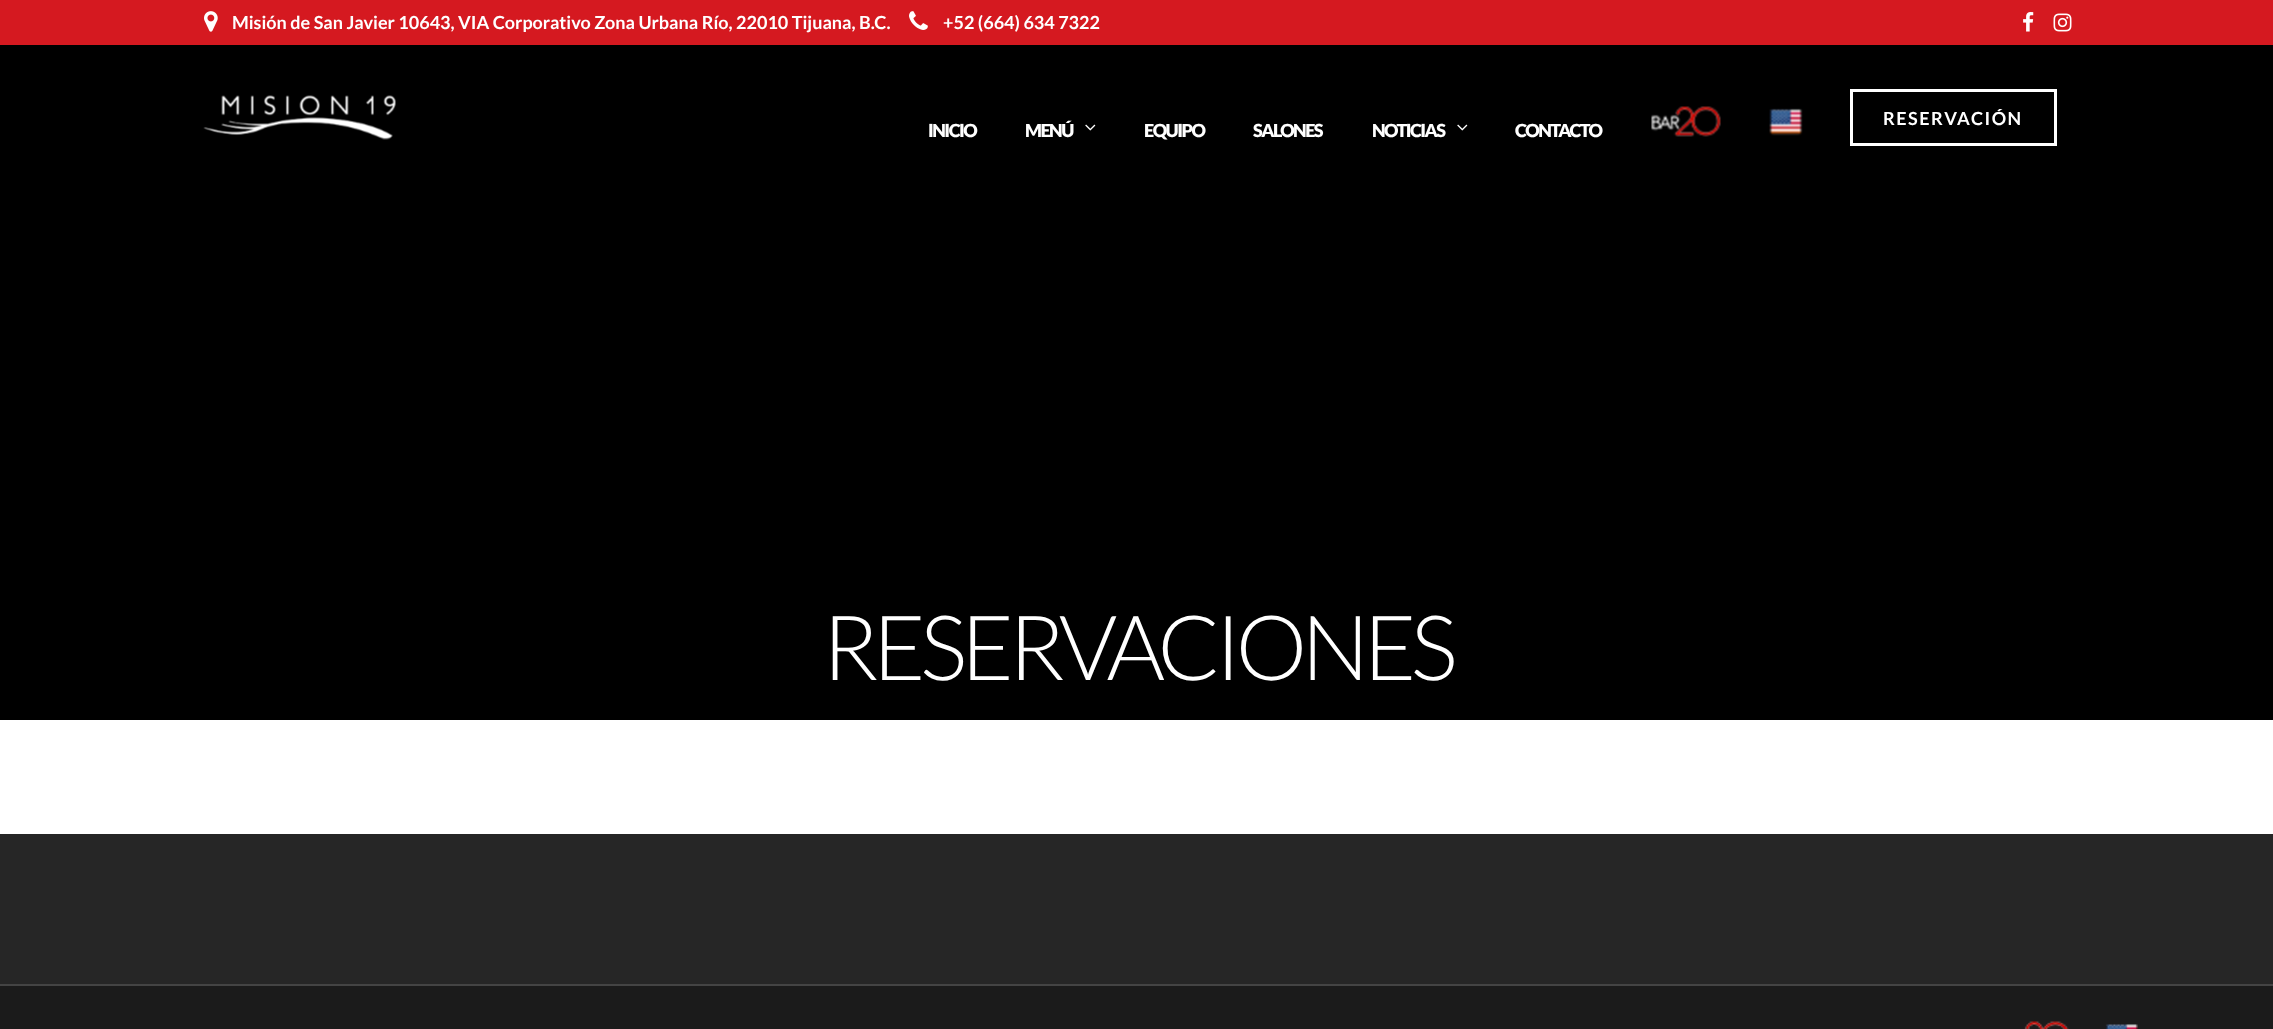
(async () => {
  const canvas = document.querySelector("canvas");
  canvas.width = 2273;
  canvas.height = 1029;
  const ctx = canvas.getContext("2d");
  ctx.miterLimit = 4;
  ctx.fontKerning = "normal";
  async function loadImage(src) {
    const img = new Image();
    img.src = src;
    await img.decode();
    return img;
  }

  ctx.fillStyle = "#ffffff";
  ctx.fillRect(0, 0, 2273, 1029);
  ctx.fillStyle = "#d51920";
  ctx.fillRect(0, 0, 2273, 45);
  ctx.drawImage(await loadImage("img/1.png"), 204, 11, 14, 21);
  ctx.drawImage(await loadImage("img/2.png"), 909, 11, 19, 19);
  ctx.drawImage(await loadImage("img/3.png"), 2023, 12, 11, 20);
  ctx.drawImage(await loadImage("img/4.png"), 2053, 13, 19, 19);
  ctx.fillStyle = "#000000";
  ctx.fillRect(0, 45, 2273, 675);
  ctx.drawImage(await loadImage("img/5.png"), 203, 95, 193, 45);
  ctx.strokeStyle = "#ffffff";
  ctx.lineWidth = 3;
  ctx.strokeRect(1851.5, 90.5, 204, 54);
  ctx.drawImage(await loadImage("img/6.png"), 1085, 124, 11, 7);
  ctx.drawImage(await loadImage("img/6.png"), 1457, 124, 11, 7);
  ctx.drawImage(await loadImage("img/7.png"), 1651, 106, 70, 31);
  ctx.drawImage(await loadImage("img/8.png"), 1769, 108, 34, 28);
  for (const [x, y, w, h, color] of [
    [0, 834, 2273, 150, "#262626"],
    [0, 986, 2273, 43, "#1b1b1b"],
    [0, 984, 2273, 2, "#444444"],
  ]) {
    ctx.fillStyle = color;
    ctx.fillRect(x, y, w, h);
  }
  ctx.drawImage(await loadImage("img/9.png"), 2024, 1021, 45, 8);
  ctx.drawImage(await loadImage("img/10.png"), 2105, 1024, 33, 5);
  ctx.font = "bold 18px Lato";
  ctx.fillStyle = "#ffffff";
  ctx.fillText("Misión de San Javier 10643, VIA Corporativo Zona Urbana Río, 22010 Tijuana, B.C.", 232, 29);
  ctx.fillText("+52 (664) 634 7322", 943, 29);
  ctx.letterSpacing = "1.5px";
  ctx.fillText("RESERVACIÓN", 1883, 125);
  ctx.letterSpacing = "-1.5px";
  ctx.font = "900 18px Lato";
  for (const [text, x, y] of [
    ["INICIO", 928, 137],
    ["MENÚ", 1025, 137],
    ["EQUIPO", 1144, 137],
    ["SALONES", 1253, 137],
    ["NOTICIAS", 1372, 137],
    ["CONTACTO", 1515, 137],
  ]) {
    ctx.fillText(text, x, y);
  }
  ctx.letterSpacing = "-6px";
  ctx.font = "300 90px Lato";
  ctx.fillText("RESERVACIONES", 822, 680);
})();
